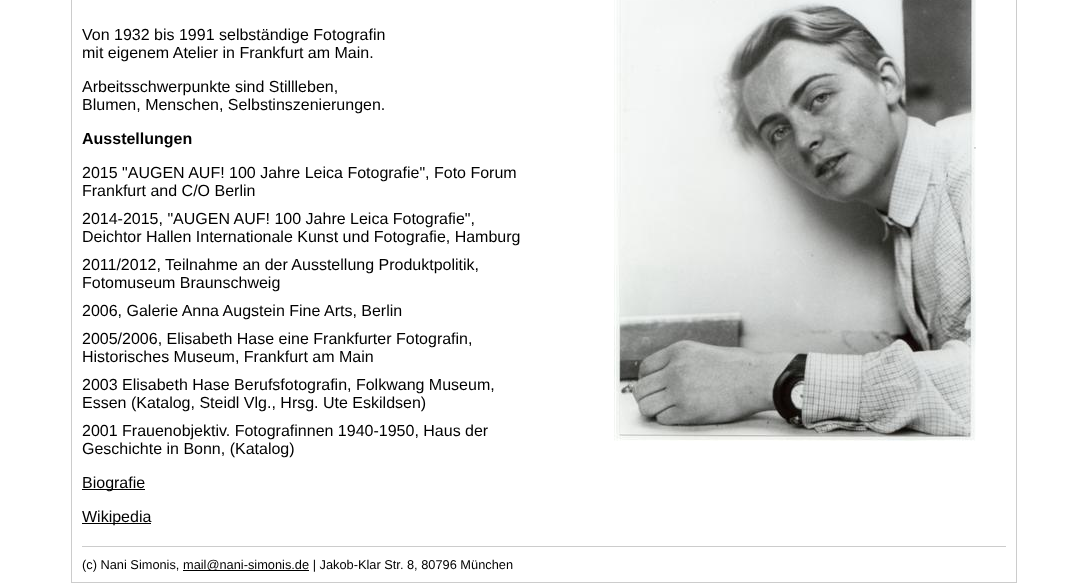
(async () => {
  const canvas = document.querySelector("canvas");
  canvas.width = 1088;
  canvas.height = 583;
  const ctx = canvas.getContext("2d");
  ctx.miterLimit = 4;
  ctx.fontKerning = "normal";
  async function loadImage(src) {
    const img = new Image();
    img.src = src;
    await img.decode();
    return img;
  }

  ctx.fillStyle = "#ffffff";
  ctx.fillRect(0, 0, 1088, 583);
  ctx.strokeStyle = "#cccccc";
  ctx.strokeRect(71.5, -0.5, 945, 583);
  ctx.drawImage(await loadImage("img/1.png"), 614, 0, 362, 441);
  for (const [x, y, w, h, color] of [
    [82, 489, 63, 1, "#000000"],
    [82, 523, 69, 1, "#000000"],
    [82, 546, 924, 1, "#cccccc"],
    [183, 570, 126, 1, "#000000"],
  ]) {
    ctx.fillStyle = color;
    ctx.fillRect(x, y, w, h);
  }
  ctx.font = "16px Liberation Sans";
  for (const [text, x, y] of [
    ["Von 1932 bis 1991 selbständige Fotografin", 82, 40],
    ["mit eigenem Atelier in Frankfurt am Main.", 82, 58],
    ["Arbeitsschwerpunkte sind Stillleben,", 82, 92],
    ["Blumen, Menschen, Selbstinszenierungen.", 82, 110],
  ]) {
    ctx.fillText(text, x, y);
  }
  ctx.font = "bold 16px Liberation Sans";
  ctx.fillText("Ausstellungen", 82, 144);
  ctx.font = "16px Liberation Sans";
  for (const [text, x, y] of [
    ["2015 \"AUGEN AUF! 100 Jahre Leica Fotografie\", Foto Forum", 82, 178],
    ["Frankfurt and C/O Berlin", 82, 196],
    ["2014-2015, \"AUGEN AUF! 100 Jahre Leica Fotografie\",", 82, 224],
    ["Deichtor Hallen Internationale Kunst und Fotografie, Hamburg", 82, 242],
    ["2011/2012, Teilnahme an der Ausstellung Produktpolitik,", 82, 270],
    ["Fotomuseum Braunschweig", 82, 288],
    ["2006, Galerie Anna Augstein Fine Arts, Berlin", 82, 316],
    ["2005/2006, Elisabeth Hase eine Frankfurter Fotografin,", 82, 344],
    ["Historisches Museum, Frankfurt am Main", 82, 362],
    ["2003 Elisabeth Hase Berufsfotografin, Folkwang Museum,", 82, 390],
    ["Essen (Katalog, Steidl Vlg., Hrsg. Ute Eskildsen)", 82, 408],
    ["2001 Frauenobjektiv. Fotografinnen 1940-1950, Haus der", 82, 436],
    ["Geschichte in Bonn, (Katalog)", 82, 454],
    ["Biografie", 82, 488],
    ["Wikipedia", 82, 522],
  ]) {
    ctx.fillText(text, x, y);
  }
  ctx.font = "12.8px Liberation Sans";
  ctx.fillText("(c) Nani Simonis,", 82, 569);
  ctx.fillText("mail@nani-simonis.de | Jakob-Klar Str. 8, 80796 München", 183, 569);
})();
